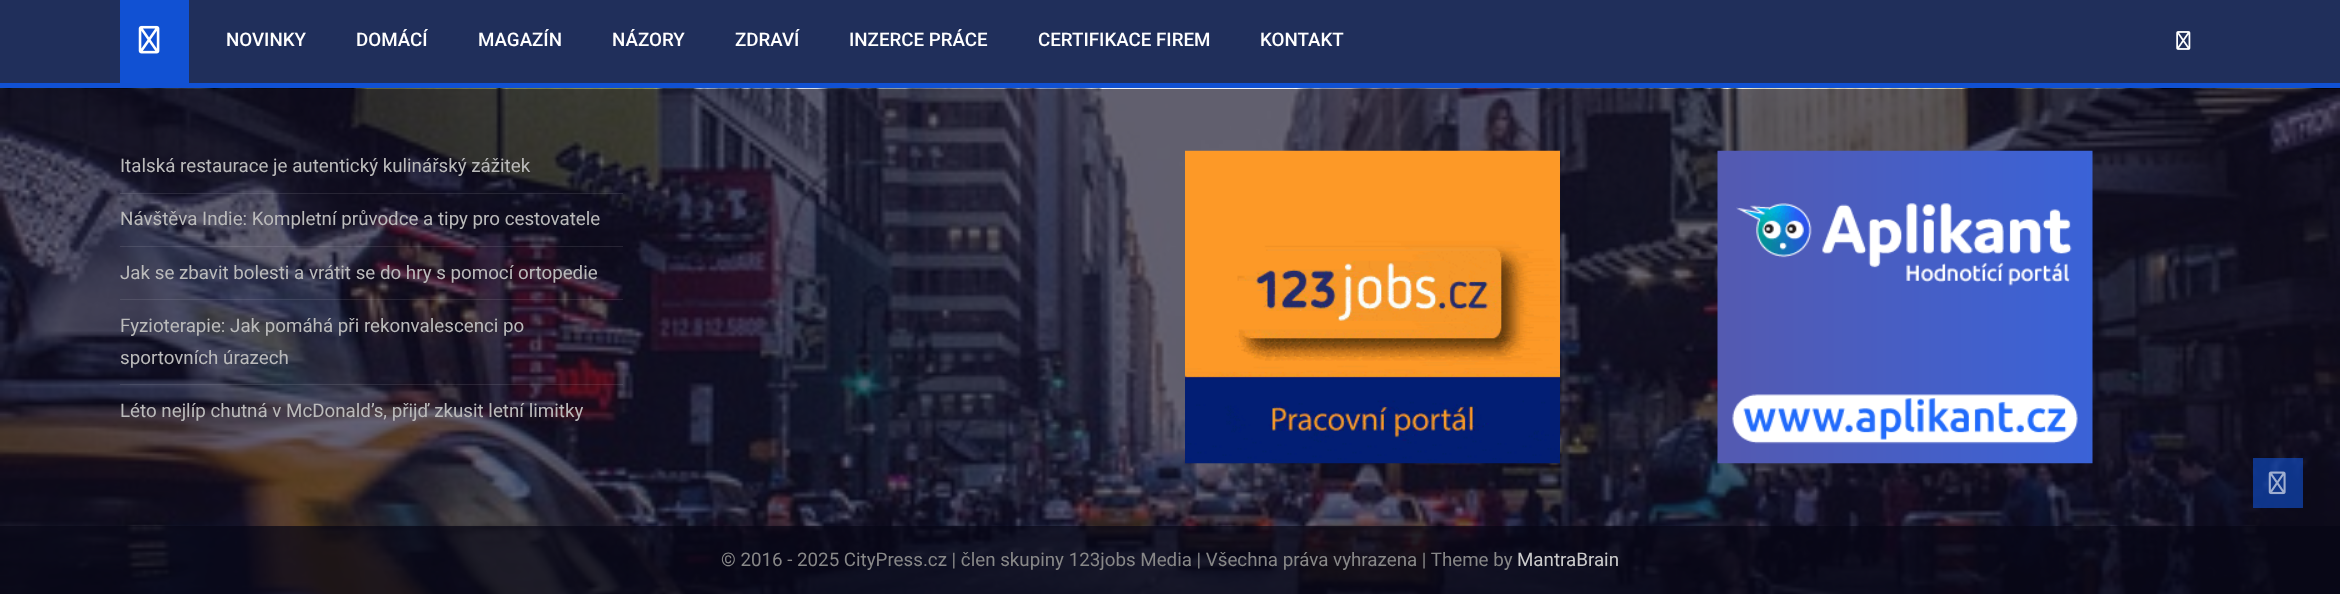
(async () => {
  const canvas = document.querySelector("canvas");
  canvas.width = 2340;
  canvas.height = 594;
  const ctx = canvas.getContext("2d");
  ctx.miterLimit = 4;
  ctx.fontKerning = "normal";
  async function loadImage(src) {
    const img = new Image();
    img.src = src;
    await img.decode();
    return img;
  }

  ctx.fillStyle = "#ffffff";
  ctx.fillRect(0, 0, 2340, 594);
  for (const [x, y, w, h, color] of [
    [0, 0, 2340, 83, "#202f5b"],
    [0, 83, 2340, 5, "#1151d3"],
    [120, 0, 69, 83, "#1151d3"],
  ]) {
    ctx.fillStyle = color;
    ctx.fillRect(x, y, w, h);
  }
  ctx.drawImage(await loadImage("img/1.png"), 138, 25, 22, 29);
  ctx.drawImage(await loadImage("img/2.png"), 2176, 31, 15, 19);
  ctx.drawImage(await loadImage("img/3.png"), 0, 88, 2340, 506);
  for (const [x, y, w, h, color] of [
    [0, 89, 2340, 437, "rgba(18, 16, 38, 0.65)"],
    [120, 193, 503, 1, "rgba(255, 255, 255, 0.1)"],
    [120, 246, 503, 1, "rgba(255, 255, 255, 0.1)"],
    [120, 299, 503, 1, "rgba(255, 255, 255, 0.1)"],
    [120, 384, 503, 1, "rgba(255, 255, 255, 0.1)"],
  ]) {
    ctx.fillStyle = color;
    ctx.fillRect(x, y, w, h);
  }
  ctx.drawImage(await loadImage("img/4.png"), 1185, 150, 375, 314);
  ctx.drawImage(await loadImage("img/5.png"), 1717, 150, 376, 314);
  ctx.fillStyle = "rgba(9, 8, 24, 0.9)";
  ctx.fillRect(0, 526, 2340, 68);
  ctx.fillStyle = "rgba(17, 81, 211, 0.6)";
  ctx.fillRect(2253, 458, 50, 50);
  ctx.drawImage(await loadImage("img/6.png"), 2268, 471, 18, 24);
  ctx.font = "500 18.75px Roboto";
  ctx.fillStyle = "#ffffff";
  for (const [text, x, y] of [
    ["NOVINKY", 226, 46],
    ["DOMÁCÍ", 356, 46],
    ["MAGAZÍN", 478, 46],
    ["NÁZORY", 612, 46],
    ["ZDRAVÍ", 735, 46],
    ["INZERCE PRÁCE", 849, 46],
    ["CERTIFIKACE FIREM", 1038, 46],
    ["KONTAKT", 1260, 46],
  ]) {
    ctx.fillText(text, x, y);
  }
  ctx.font = "18.75px Roboto";
  ctx.fillStyle = "#bbbbbb";
  for (const [text, x, y] of [
    ["Italská restaurace je autentický kulinářský zážitek", 120, 172],
    ["Návštěva Indie: Kompletní průvodce a tipy pro cestovatele", 120, 225],
    ["Jak se zbavit bolesti a vrátit se do hry s pomocí ortopedie", 120, 279],
    ["Fyzioterapie: Jak pomáhá při rekonvalescenci po", 120, 332],
    ["sportovních úrazech", 120, 364],
    ["Léto nejlíp chutná v McDonald’s, přijď zkusit letní limitky", 120, 417],
  ]) {
    ctx.fillText(text, x, y);
  }
  ctx.fillStyle = "#888888";
  ctx.fillText("© 2016 - 2025 CityPress.cz | člen skupiny 123jobs Media | Všechna práva vyhrazena | Theme by", 721, 566);
  ctx.fillStyle = "#cccccc";
  ctx.fillText("MantraBrain", 1517, 566);
})();
